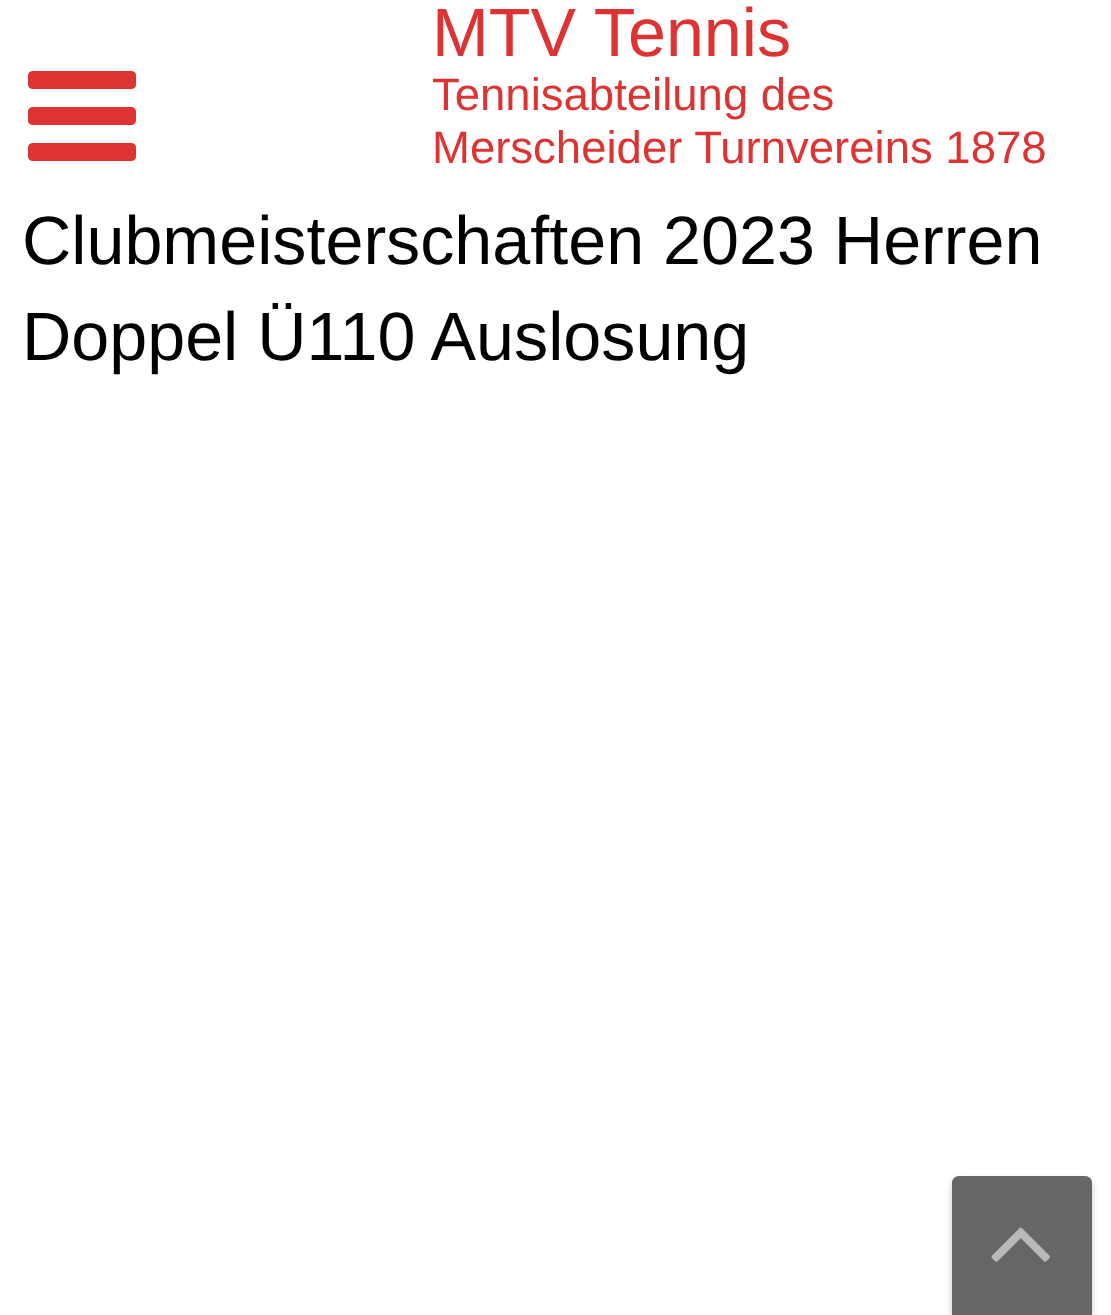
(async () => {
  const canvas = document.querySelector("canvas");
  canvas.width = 1111;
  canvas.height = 1315;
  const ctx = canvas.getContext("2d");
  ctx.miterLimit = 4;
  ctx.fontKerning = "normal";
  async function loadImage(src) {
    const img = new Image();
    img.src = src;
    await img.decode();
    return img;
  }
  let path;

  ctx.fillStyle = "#ffffff";
  ctx.fillRect(0, 0, 1111, 1315);
  ctx.drawImage(await loadImage("img/1.png"), 28, 71, 108, 90);
  ctx.fillStyle = "rgba(26, 26, 26, 0.25)";
  ctx.filter = "blur(3.5px)";
  ctx.beginPath();
  ctx.roundRect(952, 1180, 140, 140, 7);
  ctx.fill();
  ctx.filter = "none";
  ctx.fillStyle = "#666666";
  path = new Path2D("M959 1176H1085C1089 1176 1092 1179 1092 1183V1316H952V1183C952 1179 955 1176 959 1176Z");
  ctx.fill(path);
  ctx.drawImage(await loadImage("img/2.png"), 991, 1227, 59, 35);
  ctx.font = "68.25px Liberation Sans";
  ctx.fillStyle = "#dd3333";
  ctx.fillText("MTV Tennis", 432, 56);
  ctx.font = "45.5px Liberation Sans";
  ctx.fillText("Tennisabteilung des", 432, 110);
  ctx.fillText("Merscheider Turnvereins 1878", 432, 163);
  ctx.font = "68.25px Liberation Sans";
  ctx.fillStyle = "#000000";
  ctx.fillText("Clubmeisterschaften 2023 Herren", 22, 264);
  ctx.fillText("Doppel Ü110 Auslosung", 22, 360);
})();
